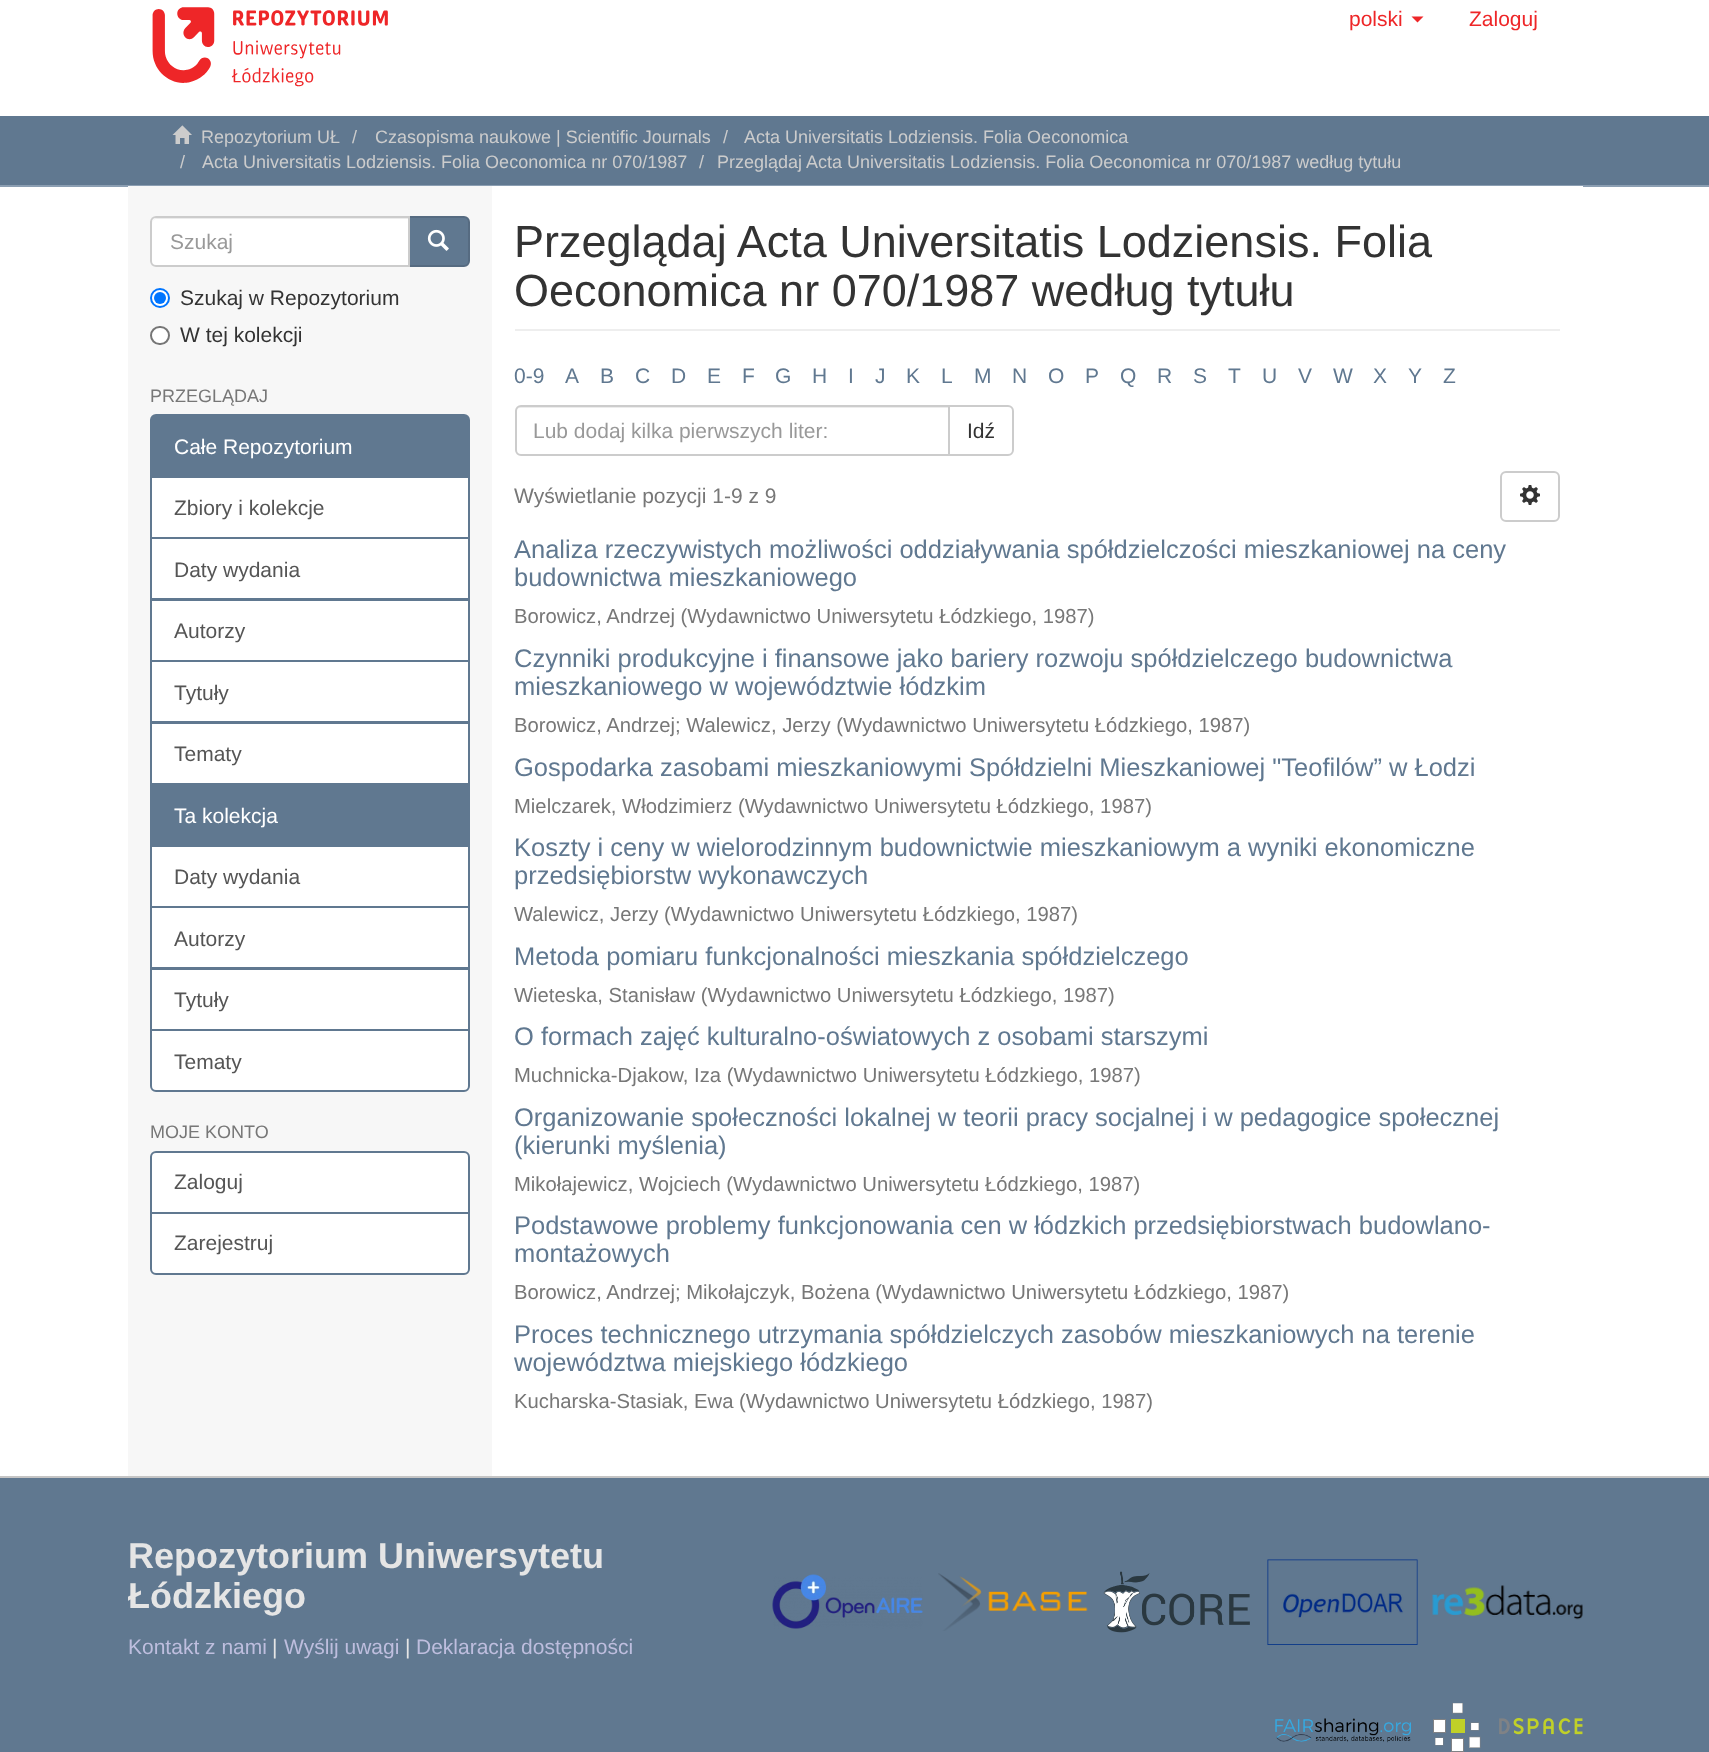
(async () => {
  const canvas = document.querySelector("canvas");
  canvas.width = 1709;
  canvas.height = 1752;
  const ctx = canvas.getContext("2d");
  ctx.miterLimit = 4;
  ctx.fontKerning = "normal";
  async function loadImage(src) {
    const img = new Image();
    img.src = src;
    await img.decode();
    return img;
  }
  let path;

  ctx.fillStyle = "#ffffff";
  ctx.fillRect(0, 0, 1709, 1752);
  ctx.drawImage(await loadImage("img/1.png"), 152, 7, 236, 80);
  ctx.fillStyle = "#ee2628";
  path = new Path2D("M1411.5 16.5H1423.5L1417.5 22.5Z");
  ctx.fill(path);
  ctx.fillStyle = "#607890";
  ctx.fillRect(0, 116, 1709, 69);
  ctx.fillStyle = "#8b9eb2";
  ctx.fillRect(0, 185, 1709, 2);
  ctx.drawImage(await loadImage("img/2.png"), 172, 125, 20, 19);
  ctx.fillStyle = "#f7f7f7";
  ctx.fillRect(128, 186, 364, 1290);
  ctx.fillStyle = "#607890";
  ctx.beginPath();
  ctx.roundRect(409, 217, 60, 49, [0, 5, 5, 0]);
  ctx.fill();
  ctx.strokeStyle = "#566b81";
  ctx.lineWidth = 2;
  ctx.stroke();
  ctx.fillStyle = "#ffffff";
  ctx.beginPath();
  ctx.roundRect(150, 216, 260, 51, [6, 0, 0, 6]);
  ctx.fill();
  ctx.fillStyle = "#ececec";
  path = new Path2D("M156 219H408V218H157C154 218 152 221 152 224C152 221 154 219 156 219Z");
  ctx.fill(path);
  ctx.beginPath();
  ctx.roundRect(151, 217, 258, 49, [5, 0, 0, 5]);
  ctx.strokeStyle = "#cccccc";
  ctx.stroke();
  ctx.drawImage(await loadImage("img/3.png"), 427, 229, 22, 22);
  ctx.fillStyle = "#ffffff";
  ctx.beginPath();
  ctx.arc(160, 298, 9, 0, Math.PI * 2);
  ctx.fill();
  ctx.strokeStyle = "#0075ff";
  ctx.stroke();
  ctx.fillStyle = "#0075ff";
  ctx.beginPath();
  ctx.arc(160, 298, 6, 0, Math.PI * 2);
  ctx.fill();
  ctx.fillStyle = "#ffffff";
  ctx.beginPath();
  ctx.roundRect(151, 327, 18, 17, 8.5);
  ctx.fill();
  ctx.strokeStyle = "#767676";
  ctx.stroke();
  ctx.beginPath();
  ctx.rect(151, 477, 318, 61);
  ctx.fill();
  ctx.strokeStyle = "#607890";
  ctx.stroke();
  ctx.fillStyle = "#607890";
  ctx.beginPath();
  ctx.roundRect(151, 415, 318, 61, [5, 5, 0, 0]);
  ctx.fill();
  ctx.stroke();
  ctx.fillStyle = "#ffffff";
  ctx.beginPath();
  ctx.rect(151, 538, 318, 61);
  ctx.fill();
  ctx.stroke();
  ctx.beginPath();
  ctx.rect(151, 600, 318, 61);
  ctx.fill();
  ctx.stroke();
  ctx.beginPath();
  ctx.rect(151, 661, 318, 61);
  ctx.fill();
  ctx.stroke();
  ctx.beginPath();
  ctx.rect(151, 723, 318, 61);
  ctx.fill();
  ctx.stroke();
  ctx.fillStyle = "#607890";
  ctx.fillRect(150, 785, 320, 60);
  ctx.fillStyle = "#ffffff";
  ctx.beginPath();
  ctx.rect(151, 846, 318, 61);
  ctx.fill();
  ctx.stroke();
  ctx.beginPath();
  ctx.rect(151, 907, 318, 61);
  ctx.fill();
  ctx.stroke();
  ctx.beginPath();
  ctx.rect(151, 969, 318, 61);
  ctx.fill();
  ctx.stroke();
  ctx.beginPath();
  ctx.roundRect(151, 1030, 318, 61, [0, 0, 5, 5]);
  ctx.fill();
  ctx.stroke();
  ctx.beginPath();
  ctx.roundRect(151, 1152, 318, 61, [5, 5, 0, 0]);
  ctx.fill();
  ctx.stroke();
  ctx.beginPath();
  ctx.roundRect(151, 1213, 318, 61, [0, 0, 5, 5]);
  ctx.fill();
  ctx.stroke();
  ctx.fillRect(492, 186, 1091, 1);
  ctx.fillStyle = "#eeeeee";
  ctx.fillRect(515, 329, 1045, 2);
  ctx.beginPath();
  ctx.roundRect(949, 406, 64, 49, [0, 5, 5, 0]);
  ctx.strokeStyle = "#cccccc";
  ctx.stroke();
  ctx.fillStyle = "#ffffff";
  ctx.beginPath();
  ctx.roundRect(515, 405, 435, 51, [6, 0, 0, 6]);
  ctx.fill();
  ctx.fillStyle = "#ececec";
  path = new Path2D("M520 408H948V407H521C518 407 516 409 516 412C516 410 518 408 520 408Z");
  ctx.fill(path);
  ctx.beginPath();
  ctx.roundRect(516, 406, 433, 49, [5, 0, 0, 5]);
  ctx.stroke();
  ctx.beginPath();
  ctx.roundRect(1501, 472, 58, 49, 5);
  ctx.stroke();
  ctx.drawImage(await loadImage("img/4.png"), 1520, 485, 20, 20);
  ctx.fillStyle = "#607890";
  ctx.fillRect(0, 1478, 1709, 274);
  ctx.fillStyle = "#c5c5c5";
  ctx.fillRect(0, 1476, 1709, 2);
  ctx.drawImage(await loadImage("img/5.png"), 772, 1574, 151, 55);
  ctx.drawImage(await loadImage("img/6.png"), 938, 1573, 150, 58);
  ctx.drawImage(await loadImage("img/7.png"), 1103, 1571, 147, 62);
  ctx.drawImage(await loadImage("img/8.png"), 1267, 1559, 151, 86);
  ctx.drawImage(await loadImage("img/9.png"), 1432, 1585, 151, 35);
  ctx.drawImage(await loadImage("img/10.png"), 1275, 1718, 136, 25);
  ctx.drawImage(await loadImage("img/11.png"), 1433, 1703, 150, 49);
  ctx.font = "21px Liberation Sans";
  ctx.fillStyle = "#ee2628";
  ctx.fillText("polski", 1349, 26);
  ctx.fillText("Zaloguj", 1469, 26);
  ctx.font = "18px Liberation Sans";
  ctx.fillStyle = "#cccccc";
  for (const [text, x, y] of [
    ["Repozytorium UŁ", 201, 143],
    ["/", 352, 143],
    ["Czasopisma naukowe | Scientific Journals", 375, 143],
    ["/", 723, 143],
    ["Acta Universitatis Lodziensis. Folia Oeconomica", 744, 143],
    ["/", 180, 168],
    ["Acta Universitatis Lodziensis. Folia Oeconomica nr 070/1987", 202, 168],
    ["/", 699, 168],
    ["Przeglądaj Acta Universitatis Lodziensis. Folia Oeconomica nr 070/1987 według tytułu", 717, 168],
  ]) {
    ctx.fillText(text, x, y);
  }
  ctx.font = "21px Liberation Sans";
  ctx.fillStyle = "#999999";
  ctx.fillText("Szukaj", 170, 249);
  ctx.fillStyle = "#333333";
  ctx.fillText("Szukaj w Repozytorium", 180, 305);
  ctx.fillText("W tej kolekcji", 180, 342);
  ctx.font = "18px Liberation Sans";
  ctx.fillStyle = "#777777";
  ctx.fillText("PRZEGLĄDAJ", 150, 402);
  ctx.font = "21px Liberation Sans";
  ctx.fillStyle = "#ffffff";
  ctx.fillText("Całe Repozytorium", 174, 454);
  ctx.fillStyle = "#555555";
  for (const [text, x, y] of [
    ["Zbiory i kolekcje", 174, 515],
    ["Daty wydania", 174, 577],
    ["Autorzy", 174, 638],
    ["Tytuły", 174, 700],
    ["Tematy", 174, 761],
  ]) {
    ctx.fillText(text, x, y);
  }
  ctx.fillStyle = "#ffffff";
  ctx.fillText("Ta kolekcja", 174, 823);
  ctx.fillStyle = "#555555";
  for (const [text, x, y] of [
    ["Daty wydania", 174, 884],
    ["Autorzy", 174, 946],
    ["Tytuły", 174, 1007],
    ["Tematy", 174, 1069],
  ]) {
    ctx.fillText(text, x, y);
  }
  ctx.font = "18px Liberation Sans";
  ctx.fillStyle = "#777777";
  ctx.fillText("MOJE KONTO", 150, 1138);
  ctx.font = "21px Liberation Sans";
  ctx.fillStyle = "#555555";
  ctx.fillText("Zaloguj", 174, 1189);
  ctx.fillText("Zarejestruj", 174, 1250);
  ctx.font = "45px Liberation Sans";
  ctx.fillStyle = "#333333";
  ctx.fillText("Przeglądaj Acta Universitatis Lodziensis. Folia", 514, 257);
  ctx.fillText("Oeconomica nr 070/1987 według tytułu", 514, 306);
  ctx.font = "21px Liberation Sans";
  ctx.fillStyle = "#607890";
  for (const [text, x, y] of [
    ["0-9", 514, 383],
    ["A", 565, 383],
    ["B", 600, 383],
    ["C", 635, 383],
    ["D", 671, 383],
    ["E", 707, 383],
    ["F", 742, 383],
    ["G", 775, 383],
    ["H", 812, 383],
    ["I", 848, 383],
    ["J", 875, 383],
    ["K", 906, 383],
    ["L", 941, 383],
    ["M", 974, 383],
    ["N", 1012, 383],
    ["O", 1048, 383],
    ["P", 1085, 383],
    ["Q", 1120, 383],
    ["R", 1157, 383],
    ["S", 1193, 383],
    ["T", 1228, 383],
    ["U", 1262, 383],
    ["V", 1298, 383],
    ["W", 1333, 383],
    ["X", 1373, 383],
    ["Y", 1408, 383],
    ["Z", 1443, 383],
  ]) {
    ctx.fillText(text, x, y);
  }
  ctx.fillStyle = "#999999";
  ctx.fillText("Lub dodaj kilka pierwszych liter:", 533, 438);
  ctx.fillStyle = "#333333";
  ctx.fillText("Idź", 967, 438);
  ctx.fillStyle = "#777777";
  ctx.fillText("Wyświetlanie pozycji 1-9 z 9", 514, 503);
  ctx.font = "25.5px Liberation Sans";
  ctx.fillStyle = "#607890";
  ctx.fillText("Analiza rzeczywistych możliwości oddziaływania spółdzielczości mieszkaniowej na ceny", 514, 558);
  ctx.fillText("budownictwa mieszkaniowego", 514, 586);
  ctx.font = "20.25px Liberation Sans";
  ctx.fillStyle = "#777777";
  ctx.fillText("Borowicz, Andrzej (Wydawnictwo Uniwersytetu Łódzkiego, 1987)", 514, 623);
  ctx.font = "25.5px Liberation Sans";
  ctx.fillStyle = "#607890";
  ctx.fillText("Czynniki produkcyjne i finansowe jako bariery rozwoju spółdzielczego budownictwa", 514, 667);
  ctx.fillText("mieszkaniowego w województwie łódzkim", 514, 695);
  ctx.font = "20.25px Liberation Sans";
  ctx.fillStyle = "#777777";
  ctx.fillText("Borowicz, Andrzej; Walewicz, Jerzy (Wydawnictwo Uniwersytetu Łódzkiego, 1987)", 514, 732);
  ctx.font = "25.5px Liberation Sans";
  ctx.fillStyle = "#607890";
  ctx.fillText("Gospodarka zasobami mieszkaniowymi Spółdzielni Mieszkaniowej \"Teofilów” w Łodzi", 514, 776);
  ctx.font = "20.25px Liberation Sans";
  ctx.fillStyle = "#777777";
  ctx.fillText("Mielczarek, Włodzimierz (Wydawnictwo Uniwersytetu Łódzkiego, 1987)", 514, 813);
  ctx.font = "25.5px Liberation Sans";
  ctx.fillStyle = "#607890";
  ctx.fillText("Koszty i ceny w wielorodzinnym budownictwie mieszkaniowym a wyniki ekonomiczne", 514, 856);
  ctx.fillText("przedsiębiorstw wykonawczych", 514, 884);
  ctx.font = "20.25px Liberation Sans";
  ctx.fillStyle = "#777777";
  ctx.fillText("Walewicz, Jerzy (Wydawnictwo Uniwersytetu Łódzkiego, 1987)", 514, 921);
  ctx.font = "25.5px Liberation Sans";
  ctx.fillStyle = "#607890";
  ctx.fillText("Metoda pomiaru funkcjonalności mieszkania spółdzielczego", 514, 965);
  ctx.font = "20.25px Liberation Sans";
  ctx.fillStyle = "#777777";
  ctx.fillText("Wieteska, Stanisław (Wydawnictwo Uniwersytetu Łódzkiego, 1987)", 514, 1002);
  ctx.font = "25.5px Liberation Sans";
  ctx.fillStyle = "#607890";
  ctx.fillText("O formach zajęć kulturalno-oświatowych z osobami starszymi", 514, 1045);
  ctx.font = "20.25px Liberation Sans";
  ctx.fillStyle = "#777777";
  ctx.fillText("Muchnicka-Djakow, Iza (Wydawnictwo Uniwersytetu Łódzkiego, 1987)", 514, 1082);
  ctx.font = "25.5px Liberation Sans";
  ctx.fillStyle = "#607890";
  ctx.fillText("Organizowanie społeczności lokalnej w teorii pracy socjalnej i w pedagogice społecznej", 514, 1126);
  ctx.fillText("(kierunki myślenia)", 514, 1154);
  ctx.font = "20.25px Liberation Sans";
  ctx.fillStyle = "#777777";
  ctx.fillText("Mikołajewicz, Wojciech (Wydawnictwo Uniwersytetu Łódzkiego, 1987)", 514, 1191);
  ctx.font = "25.5px Liberation Sans";
  ctx.fillStyle = "#607890";
  ctx.fillText("Podstawowe problemy funkcjonowania cen w łódzkich przedsiębiorstwach budowlano-", 514, 1234);
  ctx.fillText("montażowych", 514, 1262);
  ctx.font = "20.25px Liberation Sans";
  ctx.fillStyle = "#777777";
  ctx.fillText("Borowicz, Andrzej; Mikołajczyk, Bożena (Wydawnictwo Uniwersytetu Łódzkiego, 1987)", 514, 1299);
  ctx.font = "25.5px Liberation Sans";
  ctx.fillStyle = "#607890";
  ctx.fillText("Proces technicznego utrzymania spółdzielczych zasobów mieszkaniowych na terenie", 514, 1343);
  ctx.fillText("województwa miejskiego łódzkiego", 514, 1371);
  ctx.font = "20.25px Liberation Sans";
  ctx.fillStyle = "#777777";
  ctx.fillText("Kucharska-Stasiak, Ewa (Wydawnictwo Uniwersytetu Łódzkiego, 1987)", 514, 1408);
  ctx.font = "bold 36px Liberation Sans";
  ctx.fillStyle = "#e5e5e5";
  ctx.fillText("Repozytorium Uniwersytetu", 128, 1568);
  ctx.fillText("Łódzkiego", 128, 1608);
  ctx.font = "21px Liberation Sans";
  ctx.fillStyle = "#bebede";
  ctx.fillText("Kontakt z nami", 128, 1654);
  ctx.fillStyle = "#e5e5e5";
  ctx.fillText("|", 272, 1654);
  ctx.fillStyle = "#bebede";
  ctx.fillText("Wyślij uwagi", 284, 1654);
  ctx.fillStyle = "#e5e5e5";
  ctx.fillText("|", 405, 1654);
  ctx.fillStyle = "#bebede";
  ctx.fillText("Deklaracja dostępności", 416, 1654);
})();
